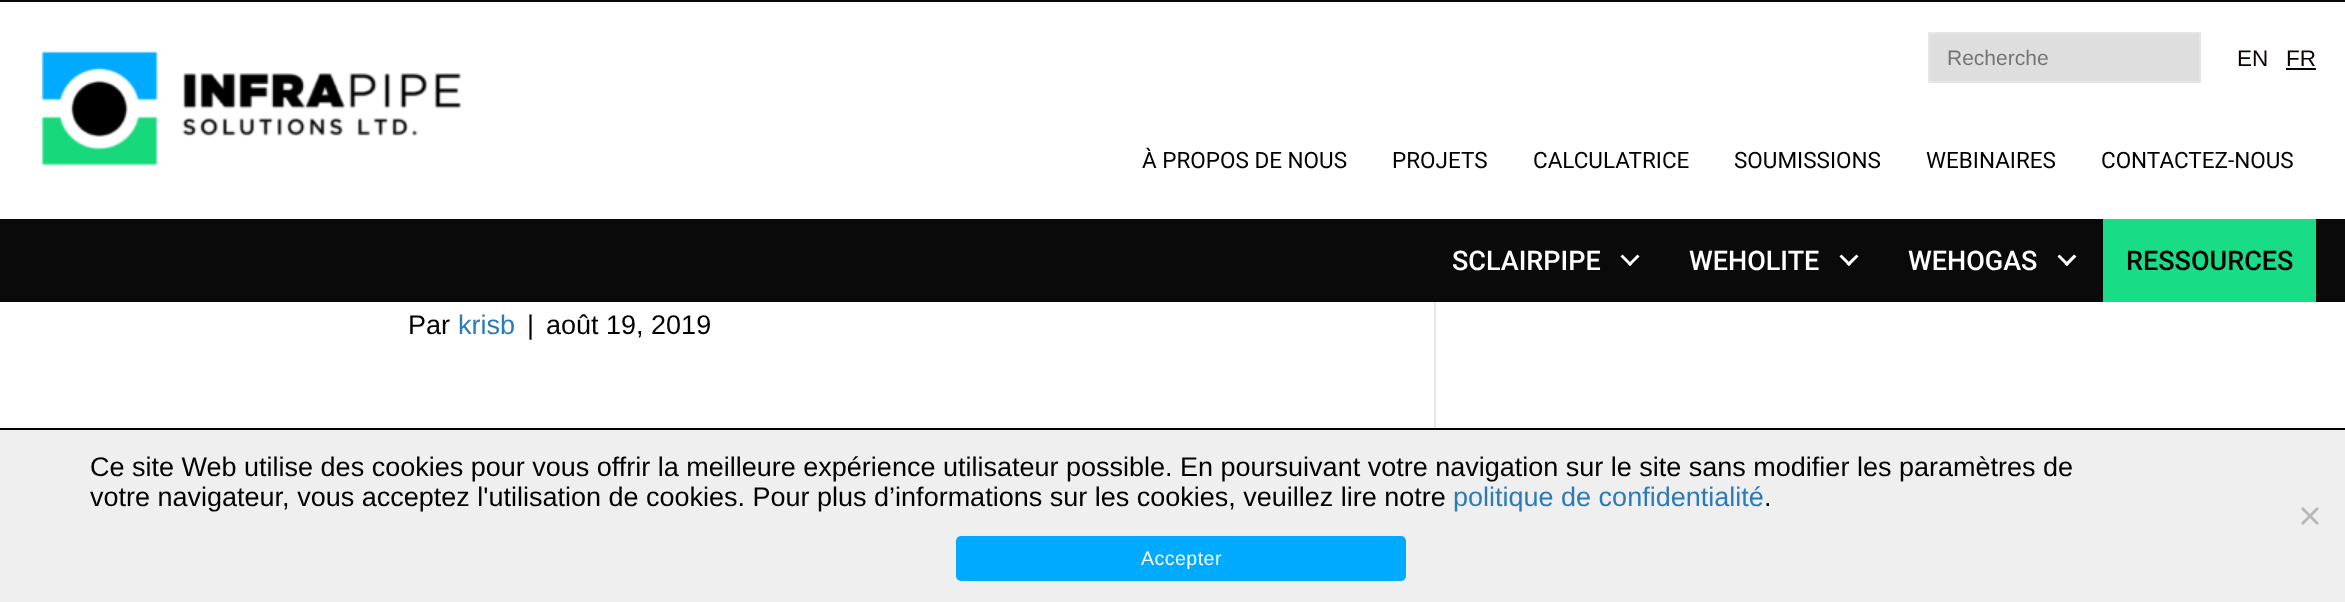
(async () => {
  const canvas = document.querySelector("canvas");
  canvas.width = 2345;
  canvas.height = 602;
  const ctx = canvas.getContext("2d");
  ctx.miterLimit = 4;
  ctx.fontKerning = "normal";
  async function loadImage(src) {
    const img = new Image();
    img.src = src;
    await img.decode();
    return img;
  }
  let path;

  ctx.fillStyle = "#ffffff";
  ctx.fillRect(0, 0, 2345, 602);
  ctx.fillStyle = "#0a0a0a";
  ctx.fillRect(0, 0, 2345, 302);
  ctx.fillStyle = "#ffffff";
  ctx.fillRect(0, 2, 2345, 217);
  ctx.drawImage(await loadImage("img/1.png"), 41, 50, 421, 116);
  ctx.fillStyle = "#dedede";
  ctx.beginPath();
  ctx.rect(1929, 33, 271, 49);
  ctx.fill();
  ctx.strokeStyle = "#e6e6e6";
  ctx.lineWidth = 2;
  ctx.stroke();
  ctx.fillStyle = "#0a0000";
  ctx.fillRect(2286, 68, 30, 2);
  ctx.fillStyle = "#ffffff";
  path = new Path2D("M1637.5 254.5L1639.5 256.5L1630 266L1628 264Z");
  ctx.fill(path);
  path = new Path2D("M1622.5 254.5L1632 264L1630 266L1620.5 256.5Z");
  ctx.fill(path);
  path = new Path2D("M1856.5 254.5L1858.5 256.5L1849 266L1846.5 264Z");
  ctx.fill(path);
  path = new Path2D("M1841.5 254.5L1851 264L1849 266L1839.5 256.5Z");
  ctx.fill(path);
  path = new Path2D("M2074 254.5L2076.5 256.5L2067 266L2064.5 264Z");
  ctx.fill(path);
  path = new Path2D("M2059.5 254.5L2069 264L2067 266L2057.5 256.5Z");
  ctx.fill(path);
  for (const [x, y, w, h, color] of [
    [2103, 219, 213, 83, "#18dd86"],
    [1434, 302, 2, 126, "#e6e6e6"],
    [0, 430, 2345, 172, "#efefef"],
    [0, 428, 2345, 2, "#000000"],
  ]) {
    ctx.fillStyle = color;
    ctx.fillRect(x, y, w, h);
  }
  ctx.fillStyle = "#b8b8b8";
  path = new Path2D("M2317 507L2319 509L2303 525L2301 523Z");
  ctx.fill(path);
  path = new Path2D("M2301 509L2303 507L2319 523L2317 525Z");
  ctx.fill(path);
  ctx.fillStyle = "#00aaff";
  ctx.beginPath();
  ctx.roundRect(956, 536, 450, 45, 5);
  ctx.fill();
  ctx.font = "21px Liberation Sans";
  ctx.fillStyle = "#757575";
  ctx.fillText("Recherche", 1947, 65);
  ctx.font = "22.5px Liberation Sans";
  ctx.fillStyle = "#0a0000";
  ctx.fillText("EN", 2237, 66);
  ctx.fillText("FR", 2286, 66);
  ctx.font = "22.5px Roboto";
  ctx.fillStyle = "#000000";
  for (const [text, x, y] of [
    ["À PROPOS DE NOUS", 1142, 168],
    ["PROJETS", 1392, 168],
    ["CALCULATRICE", 1533, 168],
    ["SOUMISSIONS", 1734, 168],
    ["WEBINAIRES", 1926, 168],
    ["CONTACTEZ-NOUS", 2101, 168],
  ]) {
    ctx.fillText(text, x, y);
  }
  ctx.font = "500 27px Roboto";
  ctx.fillStyle = "#ffffff";
  for (const [text, x, y] of [
    ["SCLAIRPIPE", 1452, 270],
    ["WEHOLITE", 1689, 270],
    ["WEHOGAS", 1908, 270],
  ]) {
    ctx.fillText(text, x, y);
  }
  ctx.fillStyle = "#000000";
  ctx.fillText("RESSOURCES", 2126, 270);
  ctx.font = "27px Liberation Sans";
  ctx.fillText("Par", 408, 334);
  ctx.fillStyle = "#2b7bb9";
  ctx.fillText("krisb", 458, 334);
  ctx.fillStyle = "#000000";
  for (const [text, x, y] of [
    ["|", 527, 334],
    ["août 19, 2019", 546, 334],
    ["Ce site Web utilise des cookies pour vous offrir la meilleure expérience utilisateur possible. En poursuivant votre navigation sur le site sans modifier les paramètres de", 90, 476],
    ["votre navigateur, vous acceptez l'utilisation de cookies. Pour plus d’informations sur les cookies, veuillez lire notre", 90, 506],
  ]) {
    ctx.fillText(text, x, y);
  }
  ctx.fillStyle = "#2b7bb9";
  ctx.fillText("politique de confidentialité", 1453, 506);
  ctx.fillStyle = "#000000";
  ctx.fillText(".", 1764, 506);
  ctx.letterSpacing = "0.5px";
  ctx.font = "19.5px Liberation Sans";
  ctx.fillStyle = "#ffffff";
  ctx.fillText("Accepter", 1141, 565);
})();
